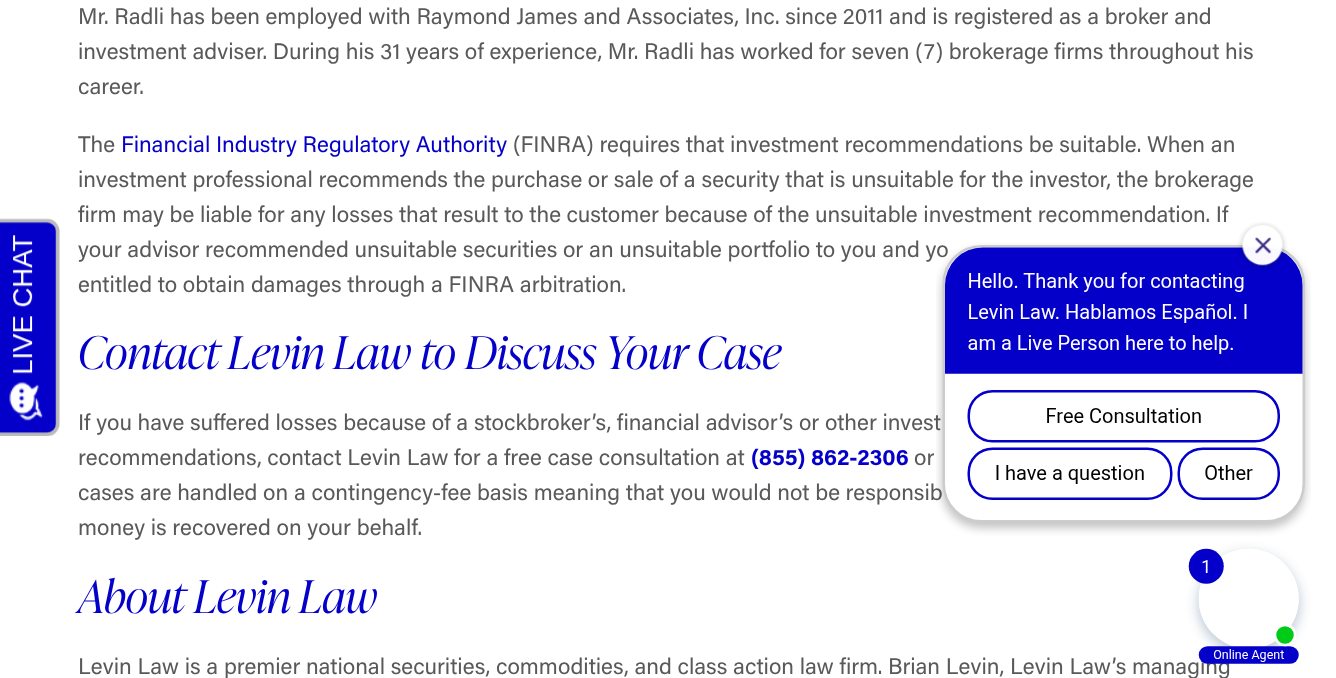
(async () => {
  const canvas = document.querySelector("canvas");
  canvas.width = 1336;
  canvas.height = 678;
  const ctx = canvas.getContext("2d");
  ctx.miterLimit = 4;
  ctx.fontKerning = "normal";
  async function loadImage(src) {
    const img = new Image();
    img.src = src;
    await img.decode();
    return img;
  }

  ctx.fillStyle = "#ffffff";
  ctx.fillRect(0, 0, 1336, 678);
  ctx.drawImage(await loadImage("img/1.png"), 0, 218, 60, 218);
  ctx.font = "22.5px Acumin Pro";
  ctx.fillStyle = "#595959";
  for (const [text, x, y] of [
    ["Mr. Radli has been employed with Raymond James and Associates, Inc. since 2011 and is registered as a broker and", 78, 24],
    ["investment adviser. During his 31 years of experience, Mr. Radli has worked for seven (7) brokerage firms throughout his", 78, 59],
    ["career.", 78, 94],
    ["The", 78, 152],
  ]) {
    ctx.fillText(text, x, y);
  }
  ctx.fillStyle = "#0400c9";
  ctx.fillText("Financial Industry Regulatory Authority", 121, 152);
  ctx.fillStyle = "#595959";
  for (const [text, x, y] of [
    ["(FINRA) requires that investment recommendations be suitable. When an", 513, 152],
    ["investment professional recommends the purchase or sale of a security that is unsuitable for the investor, the brokerage", 78, 187],
    ["firm may be liable for any losses that result to the customer because of the unsuitable investment recommendation. If", 78, 222],
    ["your advisor recommended unsuitable securities or an unsuitable portfolio to you and yo", 78, 257],
    ["entitled to obtain damages through a FINRA arbitration.", 78, 292],
  ]) {
    ctx.fillText(text, x, y);
  }
  ctx.font = "italic 300 45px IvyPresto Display";
  ctx.fillStyle = "#0400c9";
  ctx.fillText("Contact Levin Law to Discuss Your Case", 78, 369);
  ctx.font = "22.5px Acumin Pro";
  ctx.fillStyle = "#595959";
  ctx.fillText("If you have suffered losses because of a stockbroker’s, financial advisor’s or other invest", 78, 430);
  ctx.fillText("recommendations, contact Levin Law for a free case consultation at", 78, 465);
  ctx.font = "bold 22.5px Acumin Pro";
  ctx.fillStyle = "#0400c9";
  ctx.fillText("(855) 862-2306", 751, 465);
  ctx.font = "22.5px Acumin Pro";
  ctx.fillStyle = "#595959";
  for (const [text, x, y] of [
    ["or", 914, 465],
    ["cases are handled on a contingency-fee basis meaning that you would not be responsib", 78, 500],
    ["money is recovered on your behalf.", 78, 535],
  ]) {
    ctx.fillText(text, x, y);
  }
  ctx.font = "italic 300 45px IvyPresto Display";
  ctx.fillStyle = "#0400c9";
  ctx.fillText("About Levin Law", 78, 613);
  ctx.font = "22.5px Acumin Pro";
  ctx.fillStyle = "#595959";
  ctx.fillText("Levin Law is a premier national securities, commodities, and class action law firm. Brian Levin, Levin Law’s managing", 78, 674);
  ctx.drawImage(await loadImage("img/2.png"), 936, 222, 375, 442);
})();
